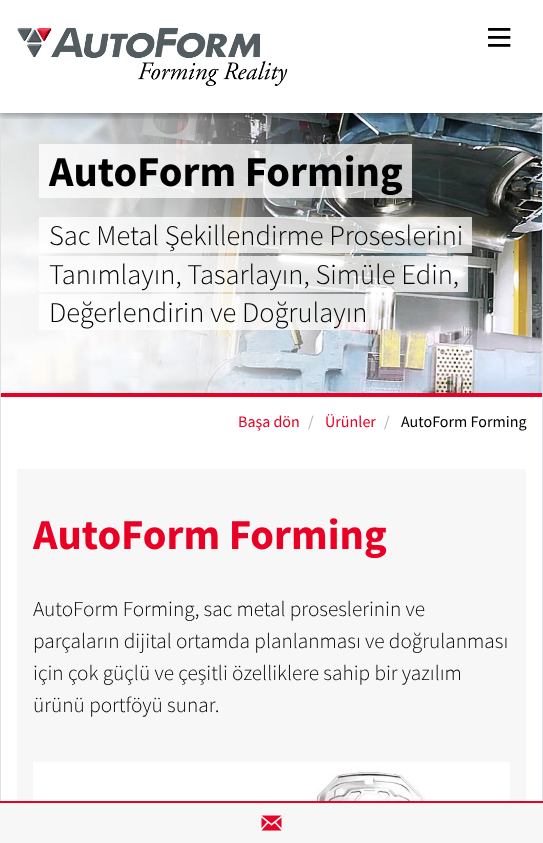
(async () => {
  const canvas = document.querySelector("canvas");
  canvas.width = 543;
  canvas.height = 843;
  const ctx = canvas.getContext("2d");
  ctx.miterLimit = 4;
  ctx.fontKerning = "normal";
  async function loadImage(src) {
    const img = new Image();
    img.src = src;
    await img.decode();
    return img;
  }

  ctx.fillStyle = "#ffffff";
  ctx.fillRect(0, 0, 543, 843);
  ctx.fillStyle = "#dee2e6";
  ctx.fillRect(542, 113, 1, 688);
  ctx.fillRect(0, 113, 1, 688);
  ctx.drawImage(await loadImage("img/3.png"), 1, 113, 541, 280);
  ctx.save();
  ctx.beginPath();
  ctx.rect(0, 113, 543, 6);
  ctx.clip();
  ctx.fillStyle = "rgba(0, 0, 0, 0.16)";
  ctx.filter = "blur(3px)";
  ctx.beginPath();
  ctx.rect(0, 3, 543, 113);
  ctx.fill();
  ctx.filter = "none";
  ctx.filter = "blur(3px)";
  ctx.beginPath();
  ctx.rect(0, 3, 543, 113);
  ctx.fill();
  ctx.filter = "none";
  ctx.restore();
  ctx.drawImage(await loadImage("img/1.png"), 17, 27, 271, 60);
  ctx.drawImage(await loadImage("img/2.png"), 488, 28, 23, 19);
  for (const [x, y, w, h, color] of [
    [1, 393, 541, 4, "#e90024"],
    [39, 144, 10, 54, "rgba(255, 255, 255, 0.75)"],
    [402, 144, 10, 54, "rgba(255, 255, 255, 0.75)"],
    [49, 144, 353, 54, "rgba(255, 255, 255, 0.75)"],
    [39, 217, 10, 36, "rgba(255, 255, 255, 0.75)"],
    [462, 217, 10, 36, "rgba(255, 255, 255, 0.75)"],
    [49, 217, 413, 36, "rgba(255, 255, 255, 0.75)"],
    [39, 256, 10, 36, "rgba(255, 255, 255, 0.75)"],
    [458, 256, 10, 36, "rgba(255, 255, 255, 0.75)"],
    [49, 256, 409, 36, "rgba(255, 255, 255, 0.75)"],
    [39, 294, 10, 36, "rgba(255, 255, 255, 0.75)"],
    [367, 294, 10, 36, "rgba(255, 255, 255, 0.75)"],
    [49, 294, 318, 36, "rgba(255, 255, 255, 0.75)"],
    [17, 469, 509, 332, "#f7f7f7"],
  ]) {
    ctx.fillStyle = color;
    ctx.fillRect(x, y, w, h);
  }
  ctx.drawImage(await loadImage("img/4.png"), 33, 762, 477, 39);
  ctx.fillStyle = "#e90024";
  ctx.fillRect(0, 801, 543, 2);
  ctx.fillStyle = "#f7f7f7";
  ctx.fillRect(0, 803, 543, 40);
  ctx.drawImage(await loadImage("img/5.png"), 261, 815, 21, 16);
  ctx.font = "bold 42.75px Source Sans Pro";
  ctx.fillStyle = "#000000";
  ctx.fillText("AutoForm Forming", 49, 186);
  ctx.font = "300 28.5px Source Sans Pro";
  for (const [text, x, y] of [
    ["Sac Metal Şekillendirme Proseslerini", 49, 245],
    ["Tanımlayın, Tasarlayın, Simüle Edin,", 49, 284],
    ["Değerlendirin ve Doğrulayın", 49, 322],
  ]) {
    ctx.fillText(text, x, y);
  }
  ctx.font = "16px Source Sans Pro";
  ctx.fillStyle = "#e90024";
  ctx.fillText("Başa dön", 238, 427);
  ctx.fillStyle = "#b0b0b0";
  ctx.fillText("/", 308, 427);
  ctx.fillStyle = "#e90024";
  ctx.fillText("Ürünler", 325, 427);
  ctx.fillStyle = "#b0b0b0";
  ctx.fillText("/", 384, 427);
  ctx.fillStyle = "#000000";
  ctx.fillText("AutoForm Forming", 401, 427);
  ctx.font = "bold 42.75px Source Sans Pro";
  ctx.fillStyle = "#e90024";
  ctx.fillText("AutoForm Forming", 33, 549);
  ctx.font = "300 21.3px Source Sans Pro";
  ctx.fillStyle = "#000000";
  for (const [text, x, y] of [
    ["AutoForm Forming, sac metal proseslerinin ve", 33, 616],
    ["parçaların dijital ortamda planlanması ve doğrulanması", 33, 648],
    ["için çok güçlü ve çeşitli özelliklere sahip bir yazılım", 33, 680],
    ["ürünü portföyü sunar.", 33, 712],
  ]) {
    ctx.fillText(text, x, y);
  }
})();
